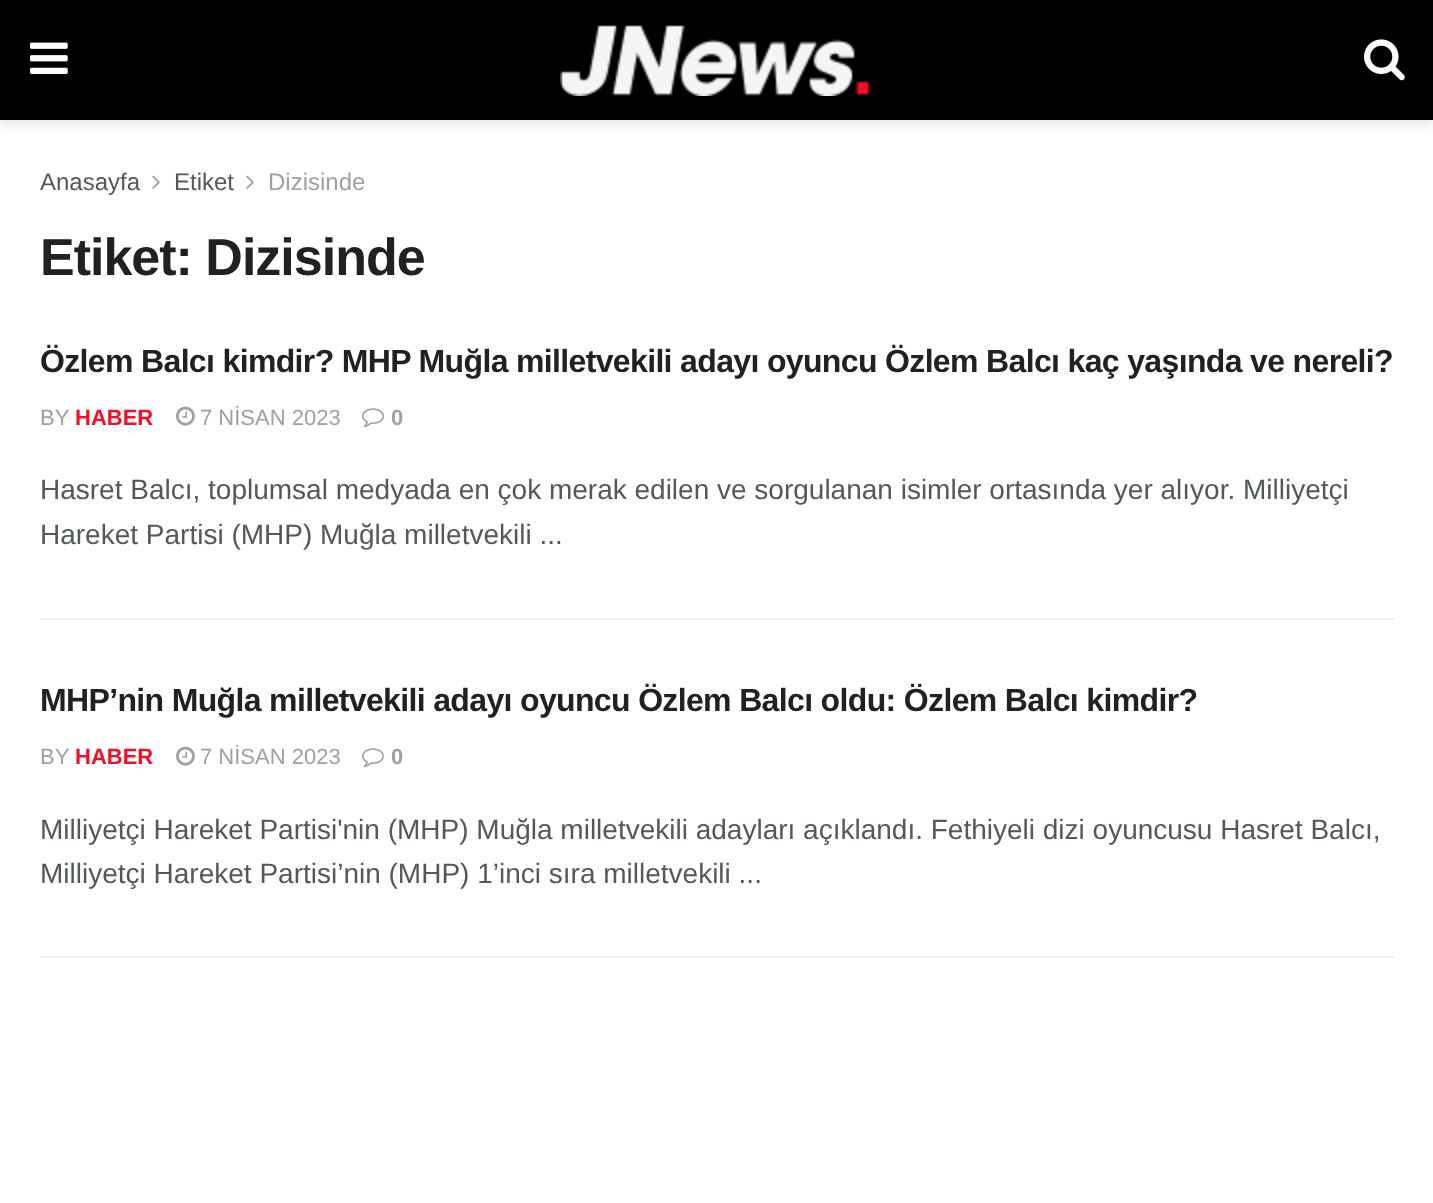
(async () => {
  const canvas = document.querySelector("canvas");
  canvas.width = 1433;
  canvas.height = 1203;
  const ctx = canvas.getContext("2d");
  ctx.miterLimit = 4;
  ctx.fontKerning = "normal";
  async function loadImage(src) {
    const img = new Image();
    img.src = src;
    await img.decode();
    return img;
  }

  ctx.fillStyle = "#ffffff";
  ctx.fillRect(0, 0, 1433, 1203);
  ctx.fillStyle = "rgba(0, 0, 0, 0.1)";
  ctx.filter = "blur(6px)";
  ctx.beginPath();
  ctx.rect(0, 4, 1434, 120);
  ctx.fill();
  ctx.filter = "none";
  ctx.fillStyle = "#000000";
  ctx.fillRect(0, 0, 1433, 120);
  ctx.drawImage(await loadImage("img/1.png"), 30, 42, 38, 32);
  ctx.drawImage(await loadImage("img/2.png"), 560, 25, 311, 71);
  ctx.drawImage(await loadImage("img/3.png"), 1364, 39, 41, 42);
  ctx.drawImage(await loadImage("img/4.png"), 152, 175, 8, 14);
  ctx.drawImage(await loadImage("img/4.png"), 246, 175, 8, 14);
  ctx.fillStyle = "#eeeeee";
  ctx.fillRect(40, 618, 1354, 2);
  ctx.drawImage(await loadImage("img/5.png"), 176, 406, 19, 20);
  ctx.drawImage(await loadImage("img/6.png"), 362, 408, 22, 20);
  ctx.fillRect(40, 956, 1354, 2);
  ctx.drawImage(await loadImage("img/5.png"), 176, 746, 19, 20);
  ctx.drawImage(await loadImage("img/6.png"), 362, 748, 22, 20);
  ctx.font = "24px Liberation Sans";
  ctx.fillStyle = "#53585c";
  ctx.fillText("Anasayfa", 40, 190);
  ctx.fillText("Etiket", 174, 190);
  ctx.fillStyle = "#a0a0a0";
  ctx.fillText("Dizisinde", 268, 190);
  ctx.letterSpacing = "-1px";
  ctx.font = "bold 52px Liberation Sans";
  ctx.fillStyle = "#212121";
  ctx.fillText("Etiket: Dizisinde", 40, 275);
  ctx.letterSpacing = "-0.65px";
  ctx.font = "bold 32px Liberation Sans";
  ctx.fillText("Özlem Balcı kimdir? MHP Muğla milletvekili adayı oyuncu Özlem Balcı kaç yaşında ve nereli?", 40, 372);
  ctx.letterSpacing = "0px";
  ctx.font = "22px Liberation Sans";
  ctx.fillStyle = "#a0a0a0";
  ctx.fillText("BY", 40, 425);
  ctx.font = "bold 22px Liberation Sans";
  ctx.fillStyle = "#f70d28";
  ctx.fillText("HABER", 75, 425);
  ctx.font = "22px Liberation Sans";
  ctx.fillStyle = "#a0a0a0";
  ctx.fillText("7 NİSAN 2023", 200, 425);
  ctx.font = "bold 22px Liberation Sans";
  ctx.fillText("0", 391, 425);
  ctx.font = "28px Liberation Sans";
  ctx.fillStyle = "#53585c";
  ctx.fillText("Hasret Balcı, toplumsal medyada en çok merak edilen ve sorgulanan isimler ortasında yer alıyor. Milliyetçi", 40, 499);
  ctx.fillText("Hareket Partisi (MHP) Muğla milletvekili ...", 40, 544);
  ctx.letterSpacing = "-0.65px";
  ctx.font = "bold 32px Liberation Sans";
  ctx.fillStyle = "#212121";
  ctx.fillText("MHP’nin Muğla milletvekili adayı oyuncu Özlem Balcı oldu: Özlem Balcı kimdir?", 40, 711);
  ctx.letterSpacing = "0px";
  ctx.font = "22px Liberation Sans";
  ctx.fillStyle = "#a0a0a0";
  ctx.fillText("BY", 40, 764);
  ctx.font = "bold 22px Liberation Sans";
  ctx.fillStyle = "#f70d28";
  ctx.fillText("HABER", 75, 764);
  ctx.font = "22px Liberation Sans";
  ctx.fillStyle = "#a0a0a0";
  ctx.fillText("7 NİSAN 2023", 200, 764);
  ctx.font = "bold 22px Liberation Sans";
  ctx.fillText("0", 391, 764);
  ctx.font = "28px Liberation Sans";
  ctx.fillStyle = "#53585c";
  ctx.fillText("Milliyetçi Hareket Partisi'nin (MHP) Muğla milletvekili adayları açıklandı. Fethiyeli dizi oyuncusu Hasret Balcı,", 40, 839);
  ctx.fillText("Milliyetçi Hareket Partisi’nin (MHP) 1’inci sıra milletvekili ...", 40, 883);
})();
